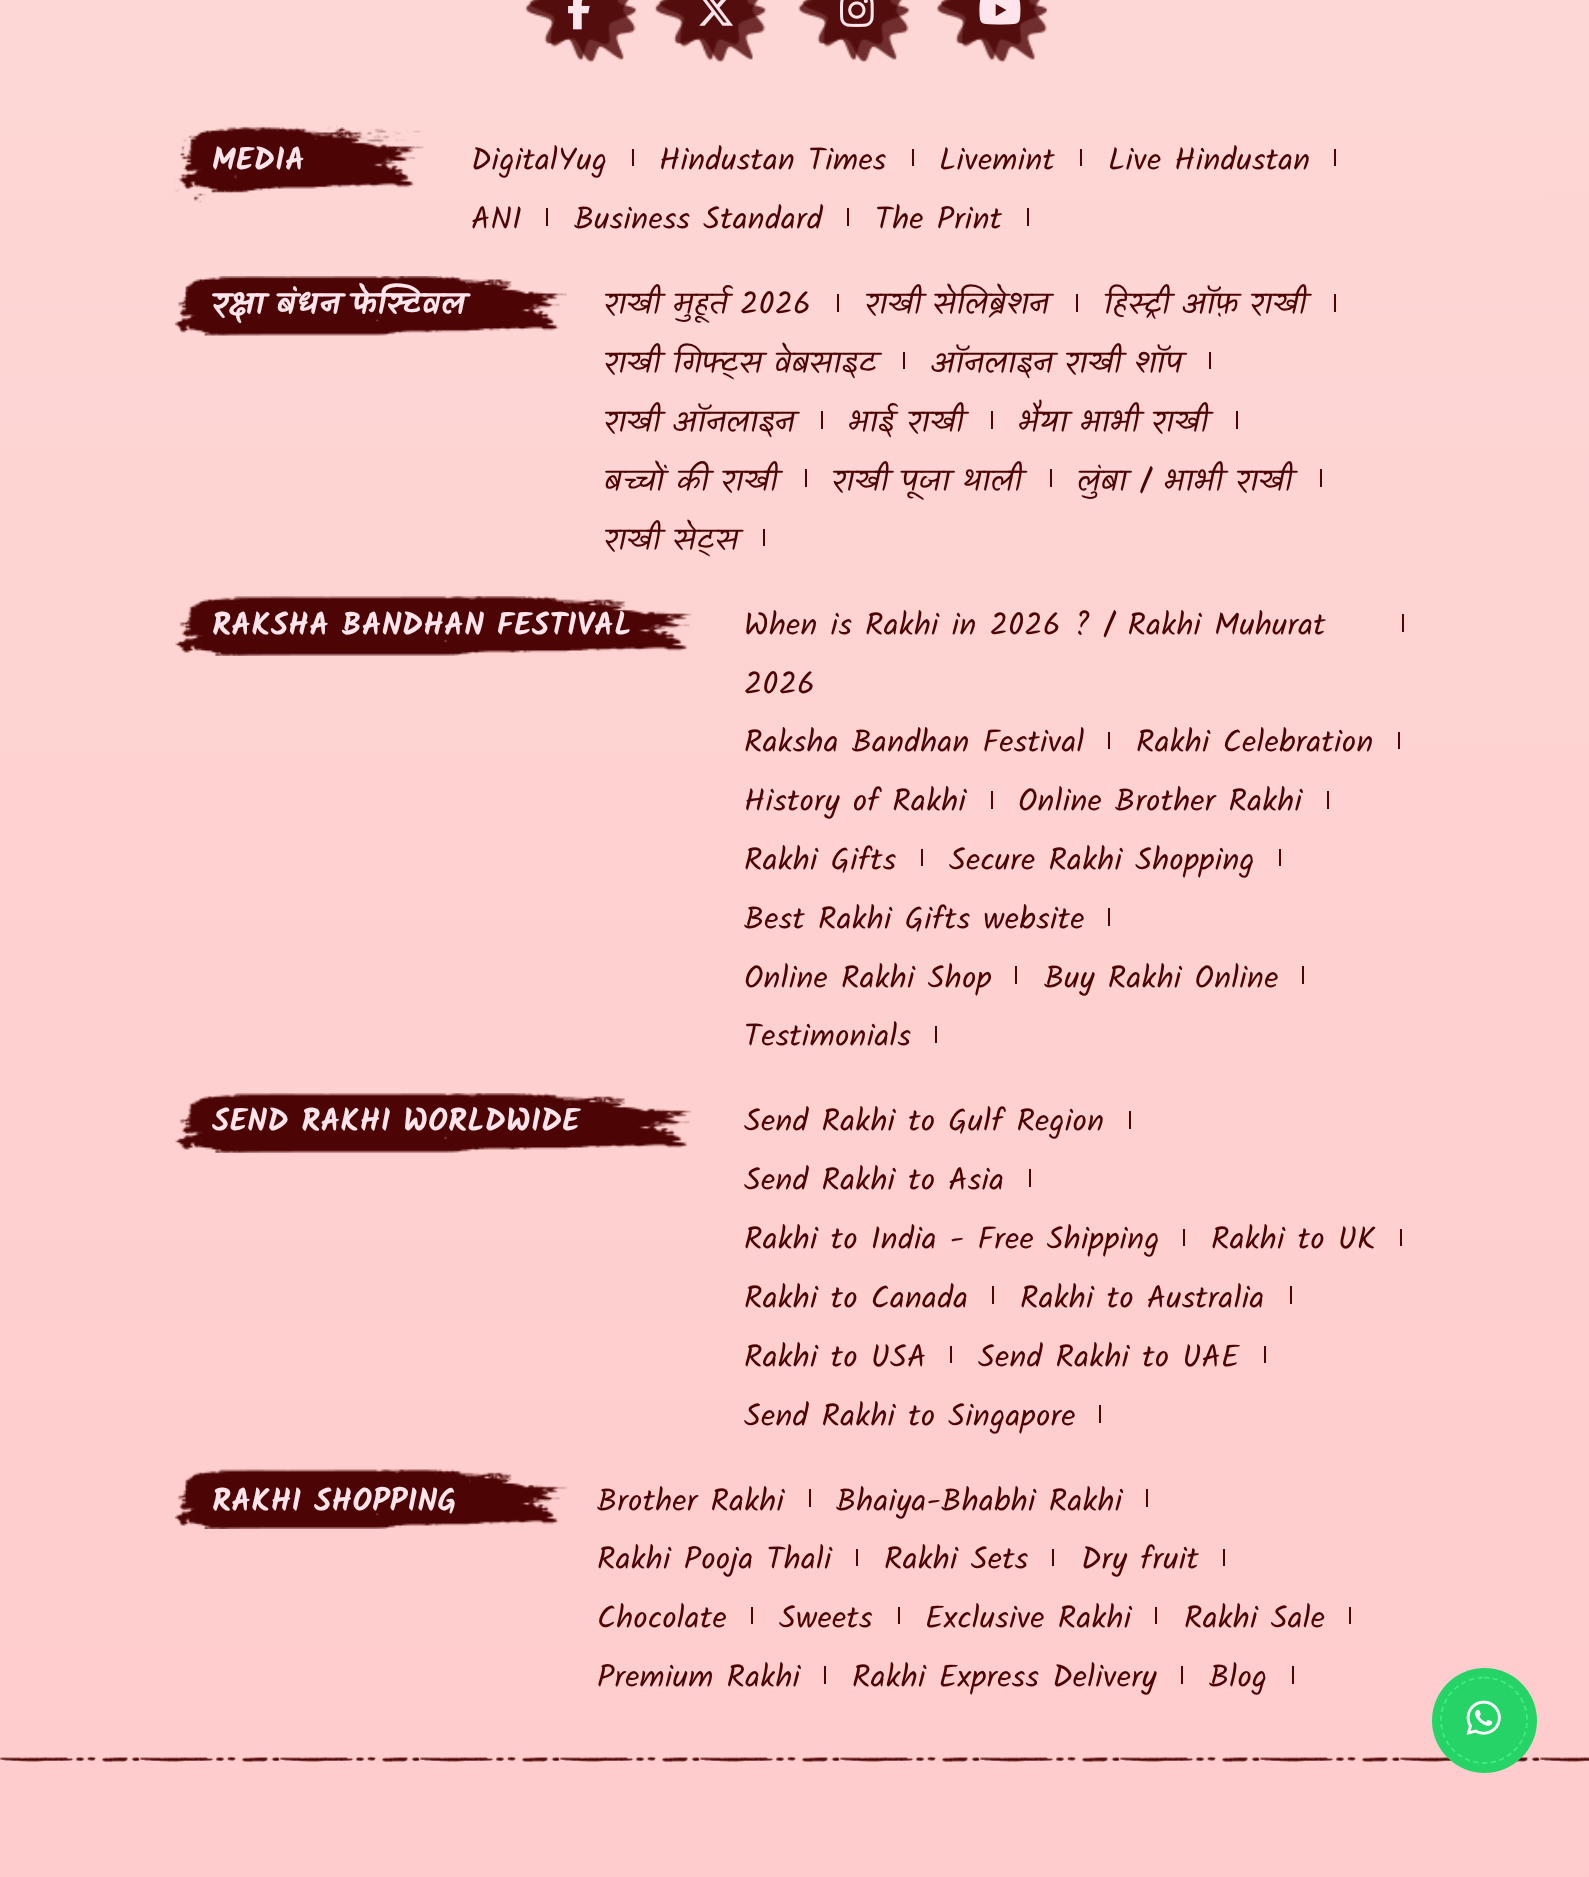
(async () => {
  const canvas = document.querySelector("canvas");
  canvas.width = 1589;
  canvas.height = 1877;
  const ctx = canvas.getContext("2d");
  ctx.miterLimit = 4;
  ctx.fontKerning = "normal";
  async function loadImage(src) {
    const img = new Image();
    img.src = src;
    await img.decode();
    return img;
  }
  let gradient, path;

  ctx.fillStyle = "#ffffff";
  ctx.fillRect(0, 0, 1589, 1877);
  gradient = ctx.createLinearGradient(794, -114, 795, 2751);
  gradient.addColorStop(0, "#fdd8d6");
  gradient.addColorStop(1, "#ffc6c8");
  ctx.fillStyle = gradient;
  ctx.fillRect(0, 0, 1589, 1877);
  ctx.drawImage(await loadImage("img/1.png"), 525, 0, 112, 63);
  ctx.drawImage(await loadImage("img/2.png"), 568, 0, 22, 30);
  ctx.drawImage(await loadImage("img/3.png"), 654, 0, 113, 63);
  ctx.drawImage(await loadImage("img/4.png"), 699, 0, 34, 26);
  ctx.drawImage(await loadImage("img/5.png"), 798, 0, 112, 63);
  ctx.drawImage(await loadImage("img/6.png"), 840, 0, 34, 27);
  ctx.drawImage(await loadImage("img/7.png"), 936, 0, 112, 63);
  ctx.drawImage(await loadImage("img/8.png"), 979, 0, 42, 25);
  ctx.drawImage(await loadImage("img/9.png"), 175, 125, 249, 78);
  for (const [x, y, w, h, color] of [
    [632, 149, 2, 17, "#4c0404"],
    [912, 149, 2, 17, "#4c0404"],
    [1080, 149, 2, 17, "#4c0404"],
    [1334, 149, 2, 17, "#4c0404"],
    [546, 208, 2, 18, "#4c0404"],
    [847, 208, 2, 18, "#4c0404"],
    [1027, 208, 2, 18, "#4c0404"],
  ]) {
    ctx.fillStyle = color;
    ctx.fillRect(x, y, w, h);
  }
  ctx.drawImage(await loadImage("img/10.png"), 175, 276, 392, 60);
  for (const [x, y, w, h, color] of [
    [837, 294, 2, 18, "#4c0404"],
    [1076, 294, 2, 18, "#4c0404"],
    [1334, 294, 2, 18, "#4c0404"],
    [903, 352, 2, 17, "#4c0404"],
    [1209, 352, 2, 17, "#4c0404"],
    [821, 411, 2, 18, "#4c0404"],
    [991, 411, 2, 18, "#4c0404"],
    [1236, 411, 2, 18, "#4c0404"],
    [805, 469, 2, 18, "#4c0404"],
    [1050, 469, 2, 18, "#4c0404"],
    [1320, 469, 2, 18, "#4c0404"],
    [763, 529, 2, 17, "#4c0404"],
  ]) {
    ctx.fillStyle = color;
    ctx.fillRect(x, y, w, h);
  }
  ctx.drawImage(await loadImage("img/11.png"), 175, 596, 517, 60);
  for (const [x, y, w, h, color] of [
    [1402, 614, 2, 18, "#4c0404"],
    [1108, 732, 2, 17, "#4c0404"],
    [1398, 732, 2, 17, "#4c0404"],
    [991, 791, 2, 18, "#4c0404"],
    [1327, 791, 2, 18, "#4c0404"],
    [921, 849, 2, 17, "#4c0404"],
    [1279, 849, 2, 17, "#4c0404"],
    [1108, 908, 2, 18, "#4c0404"],
    [1015, 966, 2, 18, "#4c0404"],
    [1302, 966, 2, 18, "#4c0404"],
    [935, 1026, 2, 17, "#4c0404"],
  ]) {
    ctx.fillStyle = color;
    ctx.fillRect(x, y, w, h);
  }
  ctx.drawImage(await loadImage("img/12.png"), 175, 1093, 517, 60);
  for (const [x, y, w, h, color] of [
    [1129, 1111, 2, 18, "#4c0404"],
    [1029, 1169, 2, 18, "#4c0404"],
    [1183, 1229, 2, 17, "#4c0404"],
    [1400, 1229, 2, 17, "#4c0404"],
    [992, 1286, 2, 18, "#4c0404"],
    [1290, 1286, 2, 18, "#4c0404"],
    [950, 1346, 2, 17, "#4c0404"],
    [1264, 1346, 2, 17, "#4c0404"],
    [1099, 1405, 2, 18, "#4c0404"],
  ]) {
    ctx.fillStyle = color;
    ctx.fillRect(x, y, w, h);
  }
  ctx.drawImage(await loadImage("img/13.png"), 175, 1469, 392, 60);
  for (const [x, y, w, h, color] of [
    [809, 1489, 2, 18, "#4c0404"],
    [1146, 1489, 2, 18, "#4c0404"],
    [856, 1549, 2, 17, "#4c0404"],
    [1052, 1549, 2, 17, "#4c0404"],
    [1223, 1549, 2, 17, "#4c0404"],
    [751, 1607, 2, 17, "#4c0404"],
    [898, 1607, 2, 17, "#4c0404"],
    [1155, 1607, 2, 17, "#4c0404"],
    [1349, 1607, 2, 17, "#4c0404"],
    [824, 1666, 2, 18, "#4c0404"],
    [1181, 1666, 2, 18, "#4c0404"],
    [1292, 1666, 2, 18, "#4c0404"],
  ]) {
    ctx.fillStyle = color;
    ctx.fillRect(x, y, w, h);
  }
  ctx.drawImage(await loadImage("img/14.png"), 0, 1756, 1589, 6);
  ctx.fillStyle = "#25d366";
  ctx.beginPath();
  ctx.arc(1484.5, 1720.5, 52.5, 0, Math.PI * 2);
  ctx.fill();
  ctx.drawImage(await loadImage("img/15.png"), 1466, 1700, 35, 35);
  path = new Path2D("M1484 1677.5C1507.5 1677.5 1527 1696.5 1527 1720C1527 1744 1507.5 1763 1484 1763C1460.5 1763 1441 1744 1441 1720C1441 1696.5 1460.5 1677.5 1484 1677.5Z");
  ctx.strokeStyle = "#41eb81";
  ctx.lineWidth = 1.8;
  ctx.setLineDash([5.25, 3.5]);
  ctx.stroke(path);
  ctx.letterSpacing = "0.3px";
  ctx.font = "bold 31.5px Kalam";
  ctx.fillStyle = "#fee4eb";
  ctx.fillText("MEDIA", 212, 170);
  ctx.font = "31.5px Kalam";
  ctx.fillStyle = "#4c0404";
  for (const [text, x, y] of [
    ["DigitalYug", 471, 170],
    ["Hindustan Times", 659, 170],
    ["Livemint", 939, 170],
    ["Live Hindustan", 1108, 170],
    ["ANI", 471, 229],
    ["Business Standard", 574, 229],
    ["The Print", 875, 229],
  ]) {
    ctx.fillText(text, x, y);
  }
  ctx.wordSpacing = "-1px";
  ctx.font = "bold 31.5px Kalam";
  ctx.fillStyle = "#fee4eb";
  ctx.fillText("रक्षा बंधन फेस्टिवल", 212, 314);
  ctx.font = "31.5px Kalam";
  ctx.fillStyle = "#4c0404";
  ctx.fillText("राखी मुहूर्त 2026", 604, 314);
  ctx.wordSpacing = "-2px";
  ctx.fillText("राखी सेलिब्रेशन", 865, 314);
  ctx.wordSpacing = "-1px";
  for (const [text, x, y] of [
    ["हिस्ट्री ऑफ़ राखी", 1104, 314],
    ["राखी गिफ्ट्स वेबसाइट", 604, 373],
    ["ऑनलाइन राखी शॉप", 931, 373],
    ["राखी ऑनलाइन", 604, 432],
    ["भाई राखी", 848, 432],
    ["भैया भाभी राखी", 1018, 432],
    ["बच्चों की राखी", 604, 491],
    ["राखी पूजा थाली", 832, 491],
  ]) {
    ctx.fillText(text, x, y);
  }
  ctx.wordSpacing = "-0.5px";
  ctx.fillText("लुंबा / भाभी राखी", 1077, 491);
  ctx.wordSpacing = "-1px";
  ctx.fillText("राखी सेट्स", 604, 550);
  ctx.wordSpacing = "0px";
  ctx.font = "bold 31.5px Kalam";
  ctx.fillStyle = "#fee4eb";
  ctx.fillText("RAKSHA BANDHAN FESTIVAL", 212, 635);
  ctx.font = "31.5px Kalam";
  ctx.fillStyle = "#4c0404";
  for (const [text, x, y] of [
    ["When is Rakhi in 2026 ? / Rakhi Muhurat", 744, 635],
    ["2026", 744, 694],
    ["Raksha Bandhan Festival", 744, 752],
    ["Rakhi Celebration", 1136, 752],
    ["History of Rakhi", 744, 811],
    ["Online Brother Rakhi", 1018, 811],
    ["Rakhi Gifts", 744, 870],
    ["Secure Rakhi Shopping", 949, 870],
    ["Best Rakhi Gifts website", 744, 929],
    ["Online Rakhi Shop", 744, 988],
    ["Buy Rakhi Online", 1044, 988],
    ["Testimonials", 744, 1046],
  ]) {
    ctx.fillText(text, x, y);
  }
  ctx.font = "bold 31.5px Kalam";
  ctx.fillStyle = "#fee4eb";
  ctx.fillText("SEND RAKHI WORLDWIDE", 212, 1131);
  ctx.font = "31.5px Kalam";
  ctx.fillStyle = "#4c0404";
  for (const [text, x, y] of [
    ["Send Rakhi to Gulf Region", 744, 1131],
    ["Send Rakhi to Asia", 744, 1190],
    ["Rakhi to India - Free Shipping", 744, 1249],
    ["Rakhi to UK", 1211, 1249],
    ["Rakhi to Canada", 744, 1308],
    ["Rakhi to Australia", 1020, 1308],
    ["Rakhi to USA", 744, 1367],
    ["Send Rakhi to UAE", 978, 1367],
    ["Send Rakhi to Singapore", 744, 1426],
  ]) {
    ctx.fillText(text, x, y);
  }
  ctx.font = "bold 31.5px Kalam";
  ctx.fillStyle = "#fee4eb";
  ctx.fillText("RAKHI SHOPPING", 212, 1511);
  ctx.font = "31.5px Kalam";
  ctx.fillStyle = "#4c0404";
  for (const [text, x, y] of [
    ["Brother Rakhi", 597, 1511],
    ["Bhaiya-Bhabhi Rakhi", 836, 1511],
    ["Rakhi Pooja Thali", 597, 1569],
    ["Rakhi Sets", 884, 1569],
    ["Dry fruit", 1081, 1569],
    ["Chocolate", 597, 1628],
    ["Sweets", 779, 1628],
    ["Exclusive Rakhi", 925, 1628],
    ["Rakhi Sale", 1184, 1628],
    ["Premium Rakhi", 597, 1687],
    ["Rakhi Express Delivery", 852, 1687],
    ["Blog", 1209, 1687],
  ]) {
    ctx.fillText(text, x, y);
  }
})();
